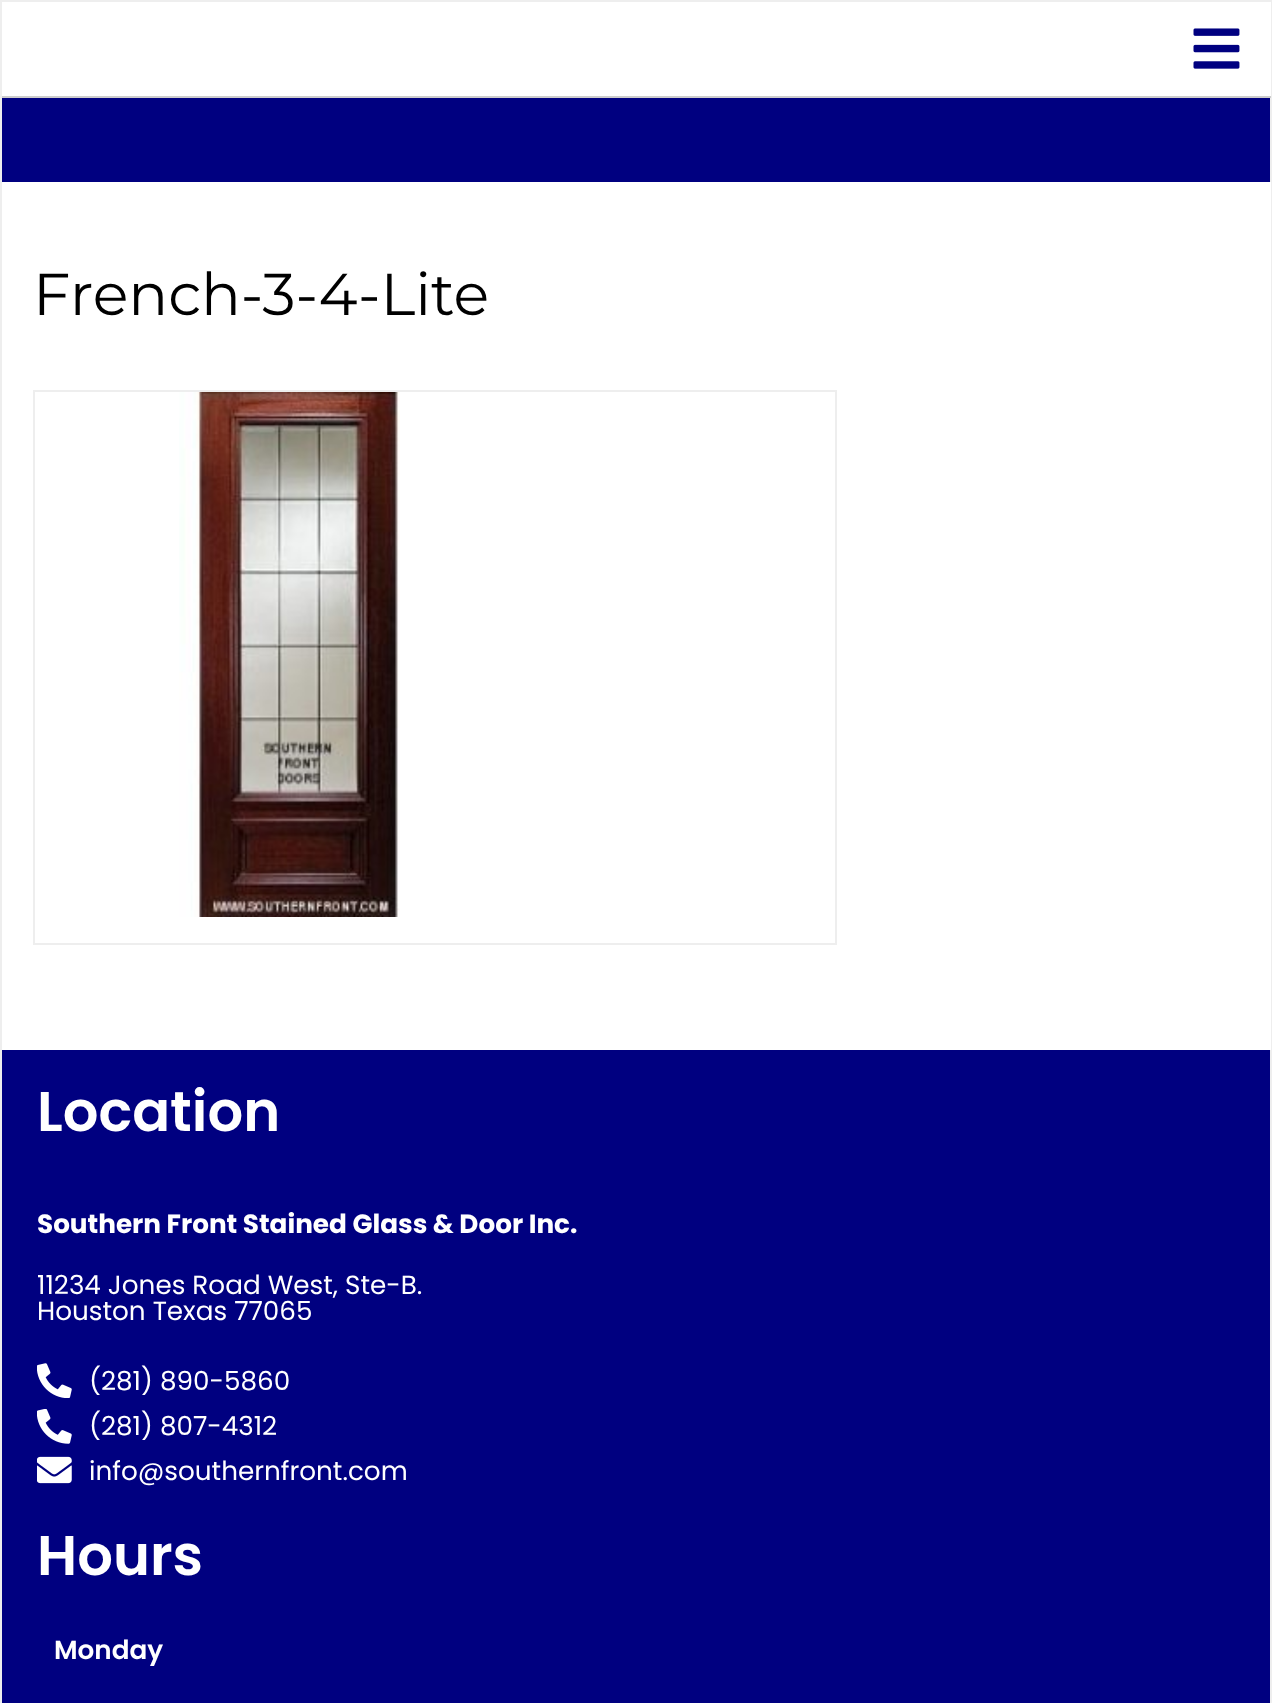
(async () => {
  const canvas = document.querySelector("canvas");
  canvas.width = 1272;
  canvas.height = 1703;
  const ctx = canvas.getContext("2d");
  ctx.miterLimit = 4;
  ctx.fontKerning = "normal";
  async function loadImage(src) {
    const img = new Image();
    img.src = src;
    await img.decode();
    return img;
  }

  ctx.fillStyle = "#000080";
  ctx.fillRect(0, 0, 1272, 1703);
  ctx.strokeStyle = "#eeeeee";
  ctx.lineWidth = 2;
  ctx.strokeRect(1, 1, 1270, 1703);
  ctx.fillStyle = "#ffffff";
  ctx.fillRect(2, 2, 1269, 94);
  ctx.fillStyle = "#cccccc";
  ctx.fillRect(2, 96, 1269, 2);
  ctx.drawImage(await loadImage("img/1.png"), 1193, 28, 47, 41);
  ctx.fillStyle = "#ffffff";
  ctx.fillRect(2, 182, 1269, 868);
  ctx.strokeRect(34, 391, 802, 553);
  ctx.drawImage(await loadImage("img/2.png"), 179, 392, 221, 525);
  ctx.drawImage(await loadImage("img/3.png"), 37, 1363, 35, 35);
  ctx.drawImage(await loadImage("img/4.png"), 37, 1409, 35, 35);
  ctx.drawImage(await loadImage("img/5.png"), 37, 1456, 35, 28);
  ctx.font = "59px Montserrat";
  ctx.fillStyle = "#000000";
  ctx.fillText("French-3-4-Lite", 33, 315);
  ctx.font = "600 56px Poppins";
  ctx.fillStyle = "#ffffff";
  ctx.fillText("Location", 37, 1131);
  ctx.font = "bold 26.25px Poppins";
  ctx.fillText("Southern Front Stained Glass & Door Inc.", 37, 1233);
  ctx.font = "26.25px Poppins";
  for (const [text, x, y] of [
    ["11234 Jones Road West, Ste-B.", 37, 1294],
    ["Houston Texas 77065", 37, 1320],
    ["(281) 890-5860", 89, 1390],
    ["(281) 807-4312", 89, 1435],
    ["info@southernfront.com", 89, 1480],
  ]) {
    ctx.fillText(text, x, y);
  }
  ctx.font = "600 56px Poppins";
  ctx.fillText("Hours", 37, 1575);
  ctx.font = "600 26.25px Poppins";
  ctx.fillText("Monday", 54, 1659);
})();
